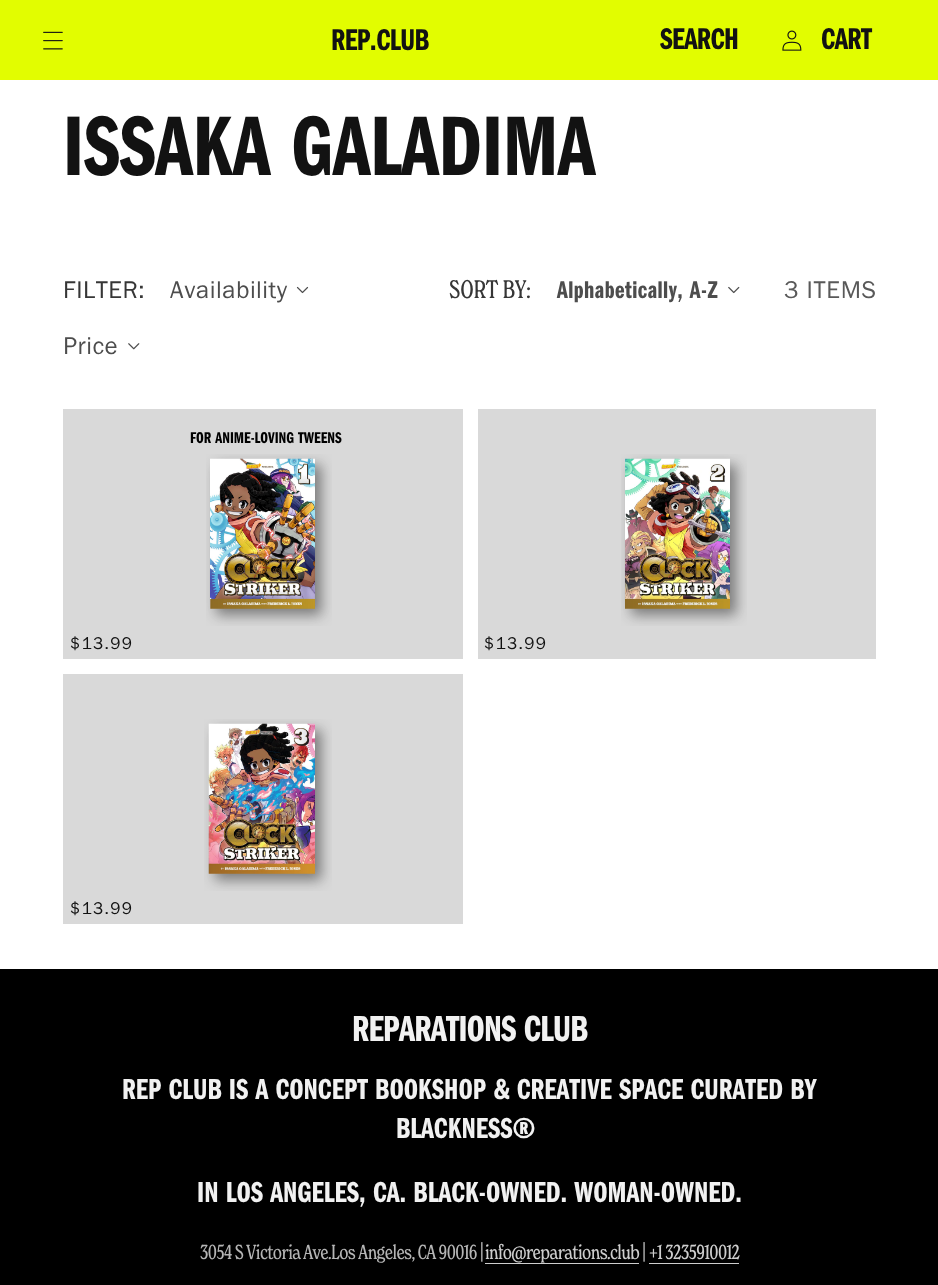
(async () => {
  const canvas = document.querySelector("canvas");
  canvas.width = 938;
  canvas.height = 1285;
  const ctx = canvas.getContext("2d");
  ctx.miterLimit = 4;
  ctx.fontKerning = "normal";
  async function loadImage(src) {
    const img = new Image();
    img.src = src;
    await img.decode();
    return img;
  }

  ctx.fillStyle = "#ffffff";
  ctx.fillRect(0, 0, 938, 1285);
  ctx.fillStyle = "#e2fd00";
  ctx.fillRect(0, 0, 938, 80);
  ctx.drawImage(await loadImage("img/1.png"), 43, 31, 20, 19);
  ctx.drawImage(await loadImage("img/2.png"), 782, 30, 20, 21);
  ctx.drawImage(await loadImage("img/3.png"), 296, 286, 13, 8);
  ctx.drawImage(await loadImage("img/4.png"), 128, 343, 12, 7);
  ctx.drawImage(await loadImage("img/5.png"), 728, 286, 12, 8);
  ctx.fillStyle = "#d9d9d9";
  ctx.fillRect(63, 409, 400, 250);
  ctx.drawImage(await loadImage("img/6.png"), 206, 454, 126, 172);
  ctx.fillRect(478, 409, 398, 250);
  ctx.drawImage(await loadImage("img/7.png"), 621, 454, 126, 172);
  ctx.fillRect(63, 674, 400, 250);
  ctx.drawImage(await loadImage("img/8.png"), 204, 719, 128, 172);
  for (const [x, y, w, h, color] of [
    [0, 969, 938, 316, "#000000"],
    [485, 1263, 154, 1, "#cdcdcd"],
    [649, 1263, 90, 1, "#cdcdcd"],
  ]) {
    ctx.fillStyle = color;
    ctx.fillRect(x, y, w, h);
  }
  ctx.letterSpacing = "-0.6px";
  ctx.font = "600 31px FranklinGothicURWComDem";
  ctx.fillStyle = "#121212";
  for (const [text, x, y] of [
    ["REP.CLUB", 331, 50],
    ["SEARCH", 660, 49],
    ["CART", 821, 49],
  ]) {
    ctx.fillText(text, x, y);
  }
  ctx.letterSpacing = "0px";
  ctx.font = "600 87.5px FranklinGothicURWComDem";
  ctx.fillText("ISSAKA GALADIMA", 63, 175);
  ctx.letterSpacing = "0.5px";
  ctx.font = "25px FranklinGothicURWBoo";
  ctx.fillStyle = "#363636";
  ctx.fillText("FILTER:", 63, 298);
  ctx.fillStyle = "#4d4d4d";
  ctx.fillText("Availability", 170, 298);
  ctx.fillText("Price", 63, 354);
  ctx.letterSpacing = "0px";
  ctx.font = "25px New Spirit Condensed";
  ctx.fillStyle = "#363636";
  ctx.fillText("SORT BY:", 449, 298);
  ctx.letterSpacing = "0.5px";
  ctx.font = "600 25px FranklinGothicURWComDem";
  ctx.fillStyle = "#4d4d4d";
  ctx.fillText("Alphabetically, A-Z", 557, 298);
  ctx.letterSpacing = "0.75px";
  ctx.font = "25px FranklinGothicURWBoo";
  ctx.fillStyle = "#595959";
  ctx.fillText("3 ITEMS", 784, 298);
  ctx.letterSpacing = "0px";
  ctx.font = "600 16.25px FranklinGothicURWComDem";
  ctx.fillStyle = "#000000";
  ctx.fillText("FOR ANIME-LOVING TWEENS", 190, 443);
  ctx.letterSpacing = "1.25px";
  ctx.font = "17.5px FranklinGothicURWBoo";
  ctx.fillStyle = "#121212";
  for (const [text, x, y] of [
    ["$13.99", 70, 649],
    ["$13.99", 484, 649],
    ["$13.99", 70, 914],
  ]) {
    ctx.fillText(text, x, y);
  }
  ctx.letterSpacing = "-0.75px";
  ctx.font = "600 37.5px FranklinGothicURWComDem";
  ctx.fillStyle = "#f1f1f1";
  ctx.fillText("REPARATIONS CLUB", 352, 1041);
  ctx.letterSpacing = "0px";
  ctx.font = "600 30px FranklinGothicURWComDem";
  for (const [text, x, y] of [
    ["REP CLUB IS A CONCEPT BOOKSHOP & CREATIVE SPACE CURATED BY", 122, 1099],
    ["BLACKNESS®", 396, 1138],
    ["IN LOS ANGELES, CA. BLACK-OWNED. WOMAN-OWNED.", 197, 1202],
  ]) {
    ctx.fillText(text, x, y);
  }
  ctx.letterSpacing = "-0.6px";
  ctx.font = "20px New Spirit Condensed";
  ctx.fillStyle = "#b5b5b5";
  ctx.fillText("3054 S Victoria Ave.Los Angeles, CA 90016 |", 200, 1259);
  ctx.fillStyle = "#cdcdcd";
  ctx.fillText("info@reparations.club", 485, 1259);
  ctx.fillStyle = "#b5b5b5";
  ctx.fillText("|", 642, 1259);
  ctx.fillStyle = "#cdcdcd";
  ctx.fillText("+1 3235910012", 649, 1259);
})();
